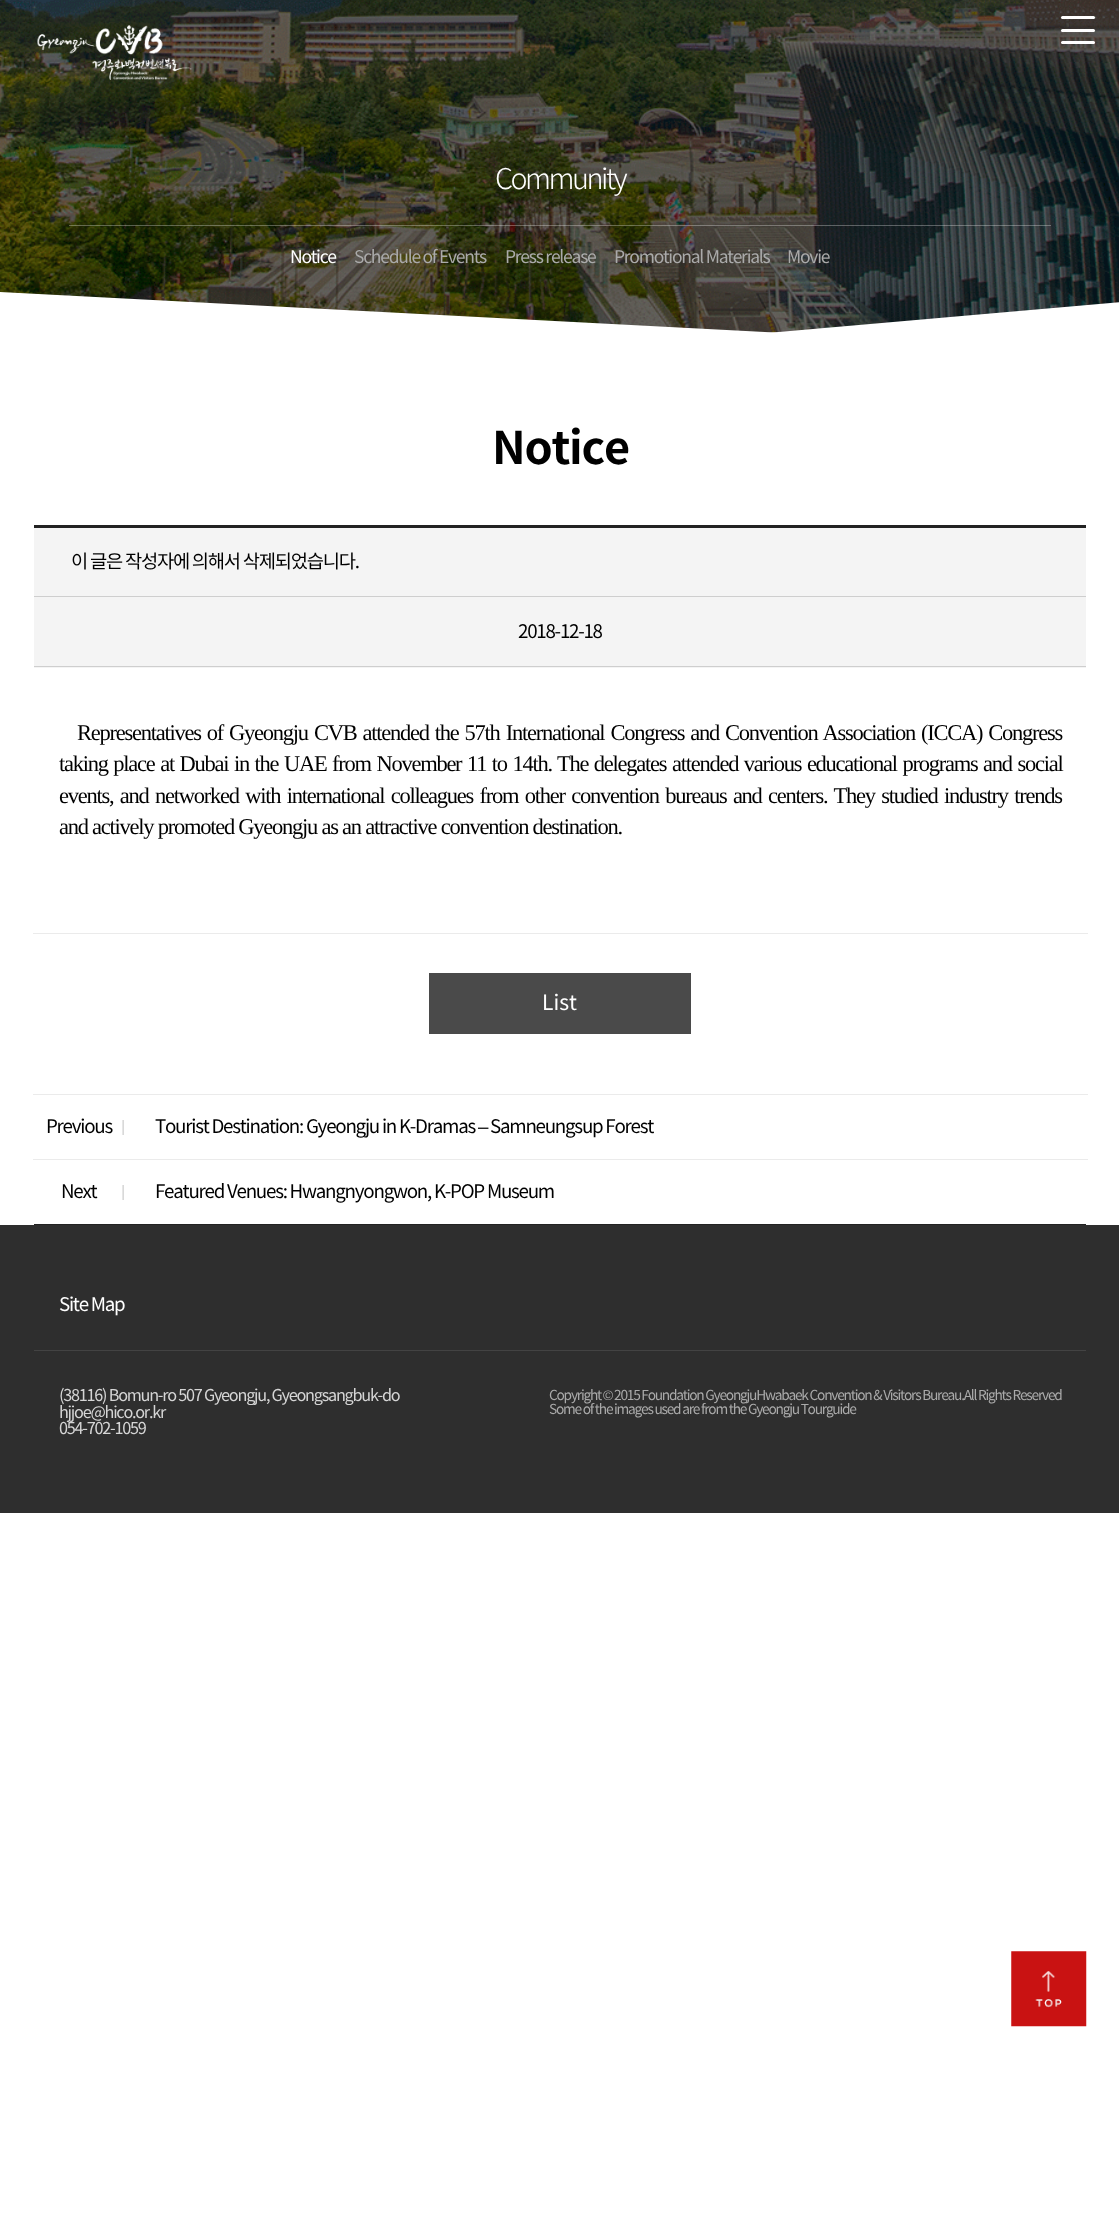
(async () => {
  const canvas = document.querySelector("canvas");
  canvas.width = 1119;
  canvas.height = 2230;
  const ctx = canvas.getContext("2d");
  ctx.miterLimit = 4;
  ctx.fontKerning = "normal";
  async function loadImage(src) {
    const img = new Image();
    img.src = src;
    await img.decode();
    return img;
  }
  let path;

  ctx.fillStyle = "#ffffff";
  ctx.fillRect(0, 0, 1119, 2230);
  ctx.drawImage(await loadImage("img/2.png"), 0, 0, 1119, 333);
  ctx.drawImage(await loadImage("img/1.png"), 37, 25, 155, 55);
  ctx.beginPath();
  ctx.roundRect(1061, 29, 34, 3, 1.5);
  ctx.fill();
  ctx.beginPath();
  ctx.roundRect(1061, 16, 34, 3, 1.5);
  ctx.fill();
  ctx.beginPath();
  ctx.roundRect(1061, 41, 34, 3, 1.5);
  ctx.fill();
  ctx.fillStyle = "rgba(255, 255, 255, 0.3)";
  ctx.fillRect(69, 225, 982, 1);
  ctx.save();
  ctx.beginPath();
  ctx.rect(0, 0, 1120, 375);
  ctx.clip();
  ctx.fillStyle = "#ffffff";
  path = new Path2D("M710 338L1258 290L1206 393L657 442Z");
  ctx.fill(path);
  path = new Path2D("M0 292L784 333V458L0 417Z");
  ctx.fill(path);
  ctx.restore();
  for (const [x, y, w, h, color] of [
    [34, 525, 1052, 3, "#222222"],
    [34, 1224, 1052, 1, "#222222"],
    [34, 528, 1052, 140, "#f4f4f4"],
    [34, 596, 1052, 1, "#cecece"],
    [34, 666, 1052, 1, "#cecece"],
    [33, 933, 1055, 1, "#ebebeb"],
    [429, 973, 262, 61, "#4a4a4a"],
    [33, 1094, 1055, 1, "#ebebeb"],
  ]) {
    ctx.fillStyle = color;
    ctx.fillRect(x, y, w, h);
  }
  ctx.drawImage(await loadImage("img/3.png"), 122, 1120, 2, 15);
  ctx.fillRect(33, 1159, 1055, 1);
  ctx.drawImage(await loadImage("img/3.png"), 122, 1185, 2, 15);
  ctx.fillStyle = "#2e2e2e";
  ctx.fillRect(0, 1225, 1119, 288);
  ctx.fillStyle = "#434343";
  ctx.fillRect(34, 1350, 1052, 1);
  ctx.drawImage(await loadImage("img/4.png"), 1011, 1951, 76, 76);
  ctx.letterSpacing = "-2.5px";
  ctx.font = "300 28.75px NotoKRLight";
  ctx.fillStyle = "#ffffff";
  ctx.fillText("Community", 495, 189);
  ctx.letterSpacing = "-1.25px";
  ctx.font = "17.5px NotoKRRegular";
  ctx.fillText("Notice", 290, 263);
  ctx.fillStyle = "#aaaaaa";
  for (const [text, x, y] of [
    ["Schedule of Events", 354, 263],
    ["Press release", 505, 263],
    ["Promotional Materials", 614, 263],
    ["Movie", 787, 263],
  ]) {
    ctx.fillText(text, x, y);
  }
  ctx.font = "bold 45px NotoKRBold";
  ctx.fillStyle = "#000000";
  ctx.fillText("Notice", 492, 464);
  ctx.font = "18.75px NotoKRRegular";
  ctx.fillText("이 글은 작성자에 의해서 삭제되었습니다.", 71, 568);
  ctx.fillText("2018-12-18", 518, 638);
  ctx.wordSpacing = "1.7px";
  ctx.font = "22.5px Liberation Serif";
  ctx.fillText("Representatives of Gyeongju CVB attended the 57th International Congress and Convention Association (ICCA) Congress", 77, 740);
  ctx.wordSpacing = "1.25px";
  ctx.fillText("taking place at Dubai in the UAE from November 11 to 14th. The delegates attended various educational programs and social", 59, 771);
  ctx.wordSpacing = "2.1px";
  ctx.fillText("events, and networked with international colleagues from other convention bureaus and centers. They studied industry trends", 59, 803);
  ctx.wordSpacing = "0px";
  ctx.fillText("and actively promoted Gyeongju as an attractive convention destination.", 59, 834);
  ctx.letterSpacing = "0px";
  ctx.font = "21px NotoKRRegular";
  ctx.fillStyle = "#ffffff";
  ctx.fillText("List", 542, 1010);
  ctx.letterSpacing = "-1.25px";
  ctx.font = "18.75px NotoKRRegular";
  ctx.fillStyle = "#000000";
  ctx.fillText("Previous", 46, 1133);
  ctx.fillText("Tourist Destination: Gyeongju in K-Dramas", 155, 1133);
  ctx.font = "18.75px Liberation Sans";
  ctx.fillText("–", 478, 1133);
  ctx.font = "18.75px NotoKRRegular";
  for (const [text, x, y] of [
    ["Samneungsup Forest", 490, 1133],
    ["Next", 61, 1198],
    ["Featured Venues: Hwangnyongwon, K-POP Museum", 155, 1198],
  ]) {
    ctx.fillText(text, x, y);
  }
  ctx.fillStyle = "#ffffff";
  ctx.fillText("Site Map", 59, 1311);
  ctx.font = "16.25px NotoKRRegular";
  ctx.fillStyle = "#d5d5d5";
  for (const [text, x, y] of [
    ["(38116) Bomun-ro 507 Gyeongju, Gyeongsangbuk-do", 59, 1401],
    ["hjjoe@hico.or.kr", 59, 1418],
    ["054-702-1059", 59, 1434],
  ]) {
    ctx.fillText(text, x, y);
  }
  ctx.font = "13.75px NotoKRRegular";
  ctx.fillStyle = "#aaaaaa";
  ctx.fillText("Copyright", 549, 1400);
  ctx.font = "13.75px Liberation Sans";
  ctx.fillText("©", 603, 1400);
  ctx.font = "13.75px NotoKRRegular";
  ctx.fillText("2015 Foundation GyeongjuHwabaek Convention & Visitors Bureau.All Rights Reserved", 614, 1400);
  ctx.fillText("Some of the images used are from the Gyeongju Tourguide", 549, 1414);
})();
